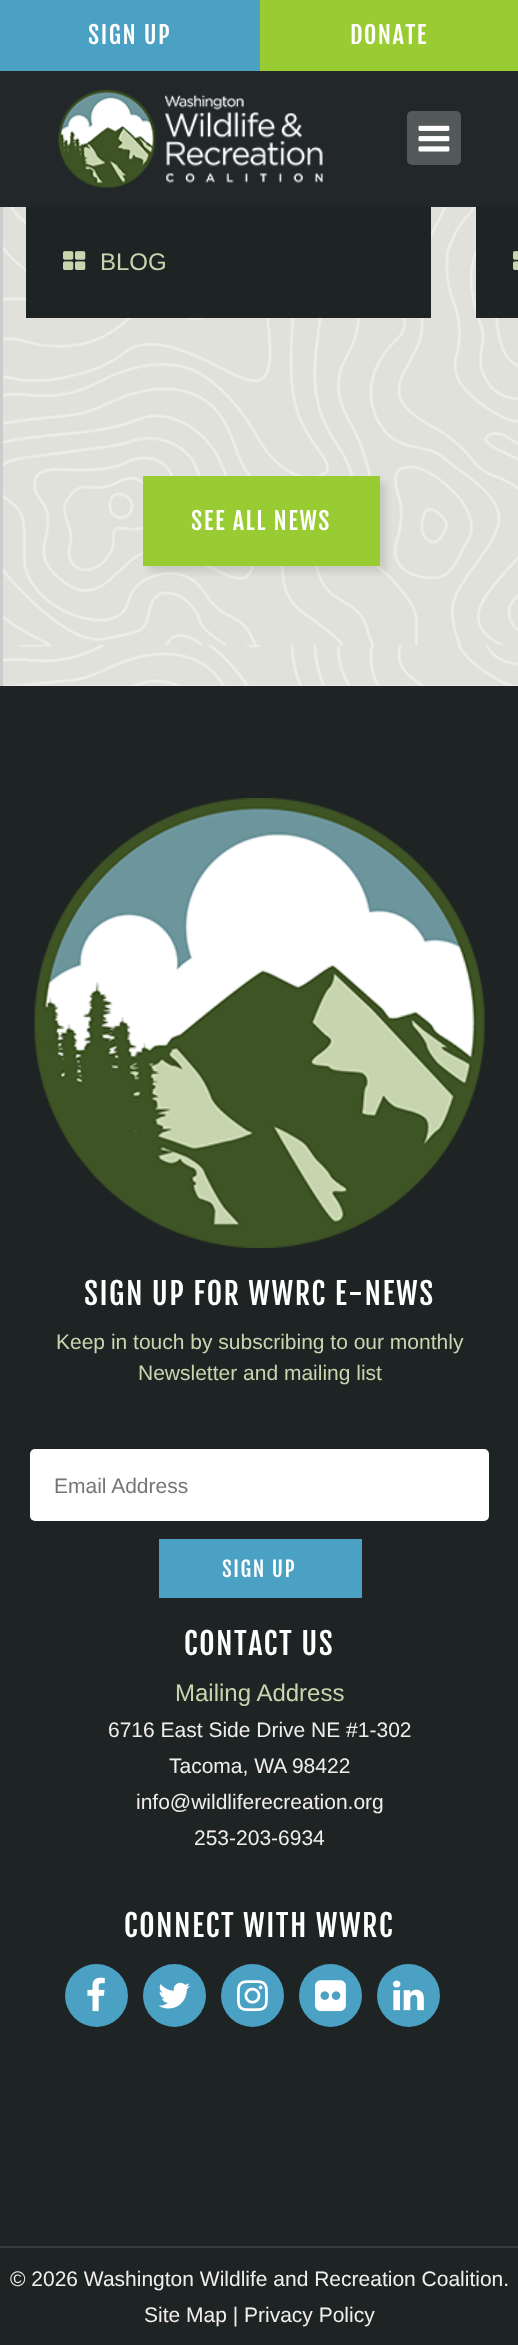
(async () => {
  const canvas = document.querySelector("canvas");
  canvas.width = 518;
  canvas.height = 2345;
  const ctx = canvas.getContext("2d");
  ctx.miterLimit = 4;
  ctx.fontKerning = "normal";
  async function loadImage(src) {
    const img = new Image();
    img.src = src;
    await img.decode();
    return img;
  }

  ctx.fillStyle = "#f2eeed";
  ctx.fillRect(0, 0, 518, 2345);
  for (const [x, y, w, h, color] of [
    [0, 0, 260, 71, "#4ba1c3"],
    [260, 0, 258, 71, "#99cc33"],
    [0, 71, 518, 136, "#222829"],
  ]) {
    ctx.fillStyle = color;
    ctx.fillRect(x, y, w, h);
  }
  ctx.drawImage(await loadImage("img/1.png"), 58, 90, 265, 98);
  ctx.fillStyle = "#535858";
  ctx.beginPath();
  ctx.roundRect(407, 111, 54, 54, 5);
  ctx.fill();
  ctx.drawImage(await loadImage("img/2.png"), 418, 125, 32, 27);
  ctx.fillStyle = "#cccccc";
  ctx.fillRect(0, 207, 3, 479);
  ctx.drawImage(await loadImage("img/3.png"), 3, 207, 515, 479);
  ctx.fillStyle = "#1e2324";
  ctx.fillRect(26, 207, 405, 111);
  ctx.drawImage(await loadImage("img/4.png"), 63, 251, 23, 19);
  ctx.fillRect(476, 207, 42, 111);
  ctx.drawImage(await loadImage("img/5.png"), 513, 251, 5, 19);
  ctx.fillStyle = "rgba(0, 0, 0, 0.1)";
  ctx.filter = "blur(3px)";
  ctx.beginPath();
  ctx.rect(149, 482, 237, 90);
  ctx.fill();
  ctx.filter = "none";
  ctx.fillStyle = "#99cc33";
  ctx.fillRect(143, 476, 237, 90);
  ctx.fillStyle = "#1e2324";
  ctx.fillRect(0, 686, 518, 1659);
  ctx.drawImage(await loadImage("img/6.png"), 34, 798, 451, 450);
  ctx.fillStyle = "#ffffff";
  ctx.beginPath();
  ctx.roundRect(30, 1449, 459, 72, 5);
  ctx.fill();
  ctx.fillStyle = "#4ba1c3";
  ctx.fillRect(159, 1539, 203, 59);
  ctx.beginPath();
  ctx.arc(96.5, 1995.5, 31.5, 0, Math.PI * 2);
  ctx.fill();
  ctx.drawImage(await loadImage("img/7.png"), 87, 1977, 18, 35);
  ctx.beginPath();
  ctx.arc(174.5, 1995.5, 31.5, 0, Math.PI * 2);
  ctx.fill();
  ctx.drawImage(await loadImage("img/8.png"), 158, 1982, 32, 27);
  ctx.beginPath();
  ctx.arc(252.5, 1995.5, 31.5, 0, Math.PI * 2);
  ctx.fill();
  ctx.drawImage(await loadImage("img/9.png"), 237, 1980, 31, 32);
  ctx.beginPath();
  ctx.arc(330.5, 1995.5, 31.5, 0, Math.PI * 2);
  ctx.fill();
  ctx.drawImage(await loadImage("img/10.png"), 315, 1980, 31, 32);
  ctx.beginPath();
  ctx.arc(408.5, 1995.5, 31.5, 0, Math.PI * 2);
  ctx.fill();
  ctx.drawImage(await loadImage("img/11.png"), 393, 1980, 31, 31);
  ctx.fillStyle = "#373a3c";
  ctx.fillRect(0, 2246, 518, 2);
  ctx.letterSpacing = "1.5px";
  ctx.font = "24px Fjalla One";
  ctx.fillStyle = "#ffffff";
  ctx.fillText("SIGN UP", 88, 44);
  ctx.fillText("DONATE", 350, 44);
  ctx.letterSpacing = "0px";
  ctx.font = "24px Arimo";
  ctx.fillStyle = "#c7d6af";
  ctx.fillText("BLOG", 100, 270);
  ctx.letterSpacing = "1.5px";
  ctx.font = "24px Fjalla One";
  ctx.fillStyle = "#ffffff";
  ctx.fillText("SEE ALL NEWS", 191, 530);
  ctx.font = "30px Fjalla One";
  ctx.fillText("SIGN UP FOR WWRC E-NEWS", 84, 1305);
  ctx.letterSpacing = "0px";
  ctx.font = "21px Arimo";
  ctx.fillStyle = "#c7d6af";
  ctx.fillText("Keep in touch by subscribing to our monthly", 56, 1349);
  ctx.fillText("Newsletter and mailing list", 138, 1380);
  ctx.fillStyle = "#757575";
  ctx.fillText("Email Address", 54, 1493);
  ctx.letterSpacing = "1.5px";
  ctx.font = "21px Fjalla One";
  ctx.fillStyle = "#ffffff";
  ctx.fillText("SIGN UP", 222, 1577);
  ctx.font = "30px Fjalla One";
  ctx.fillText("CONTACT US", 184, 1655);
  ctx.letterSpacing = "0px";
  ctx.font = "24px Arimo";
  ctx.fillStyle = "#c7d6af";
  ctx.fillText("Mailing Address", 175, 1701);
  ctx.font = "21px Arimo";
  ctx.fillStyle = "#f2eeed";
  for (const [text, x, y] of [
    ["6716 East Side Drive NE #1-302", 108, 1737],
    ["Tacoma, WA 98422", 169, 1773],
    ["info@wildliferecreation.org", 136, 1809],
    ["253-203-6934", 194, 1845],
  ]) {
    ctx.fillText(text, x, y);
  }
  ctx.letterSpacing = "1.5px";
  ctx.font = "30px Fjalla One";
  ctx.fillStyle = "#ffffff";
  ctx.fillText("CONNECT WITH WWRC", 124, 1937);
  ctx.letterSpacing = "0px";
  ctx.font = "21px Arimo";
  ctx.fillStyle = "#f2eeed";
  ctx.fillText("© 2026 Washington Wildlife and Recreation Coalition.", 10, 2286);
  ctx.fillText("Site Map | Privacy Policy", 144, 2322);
})();
